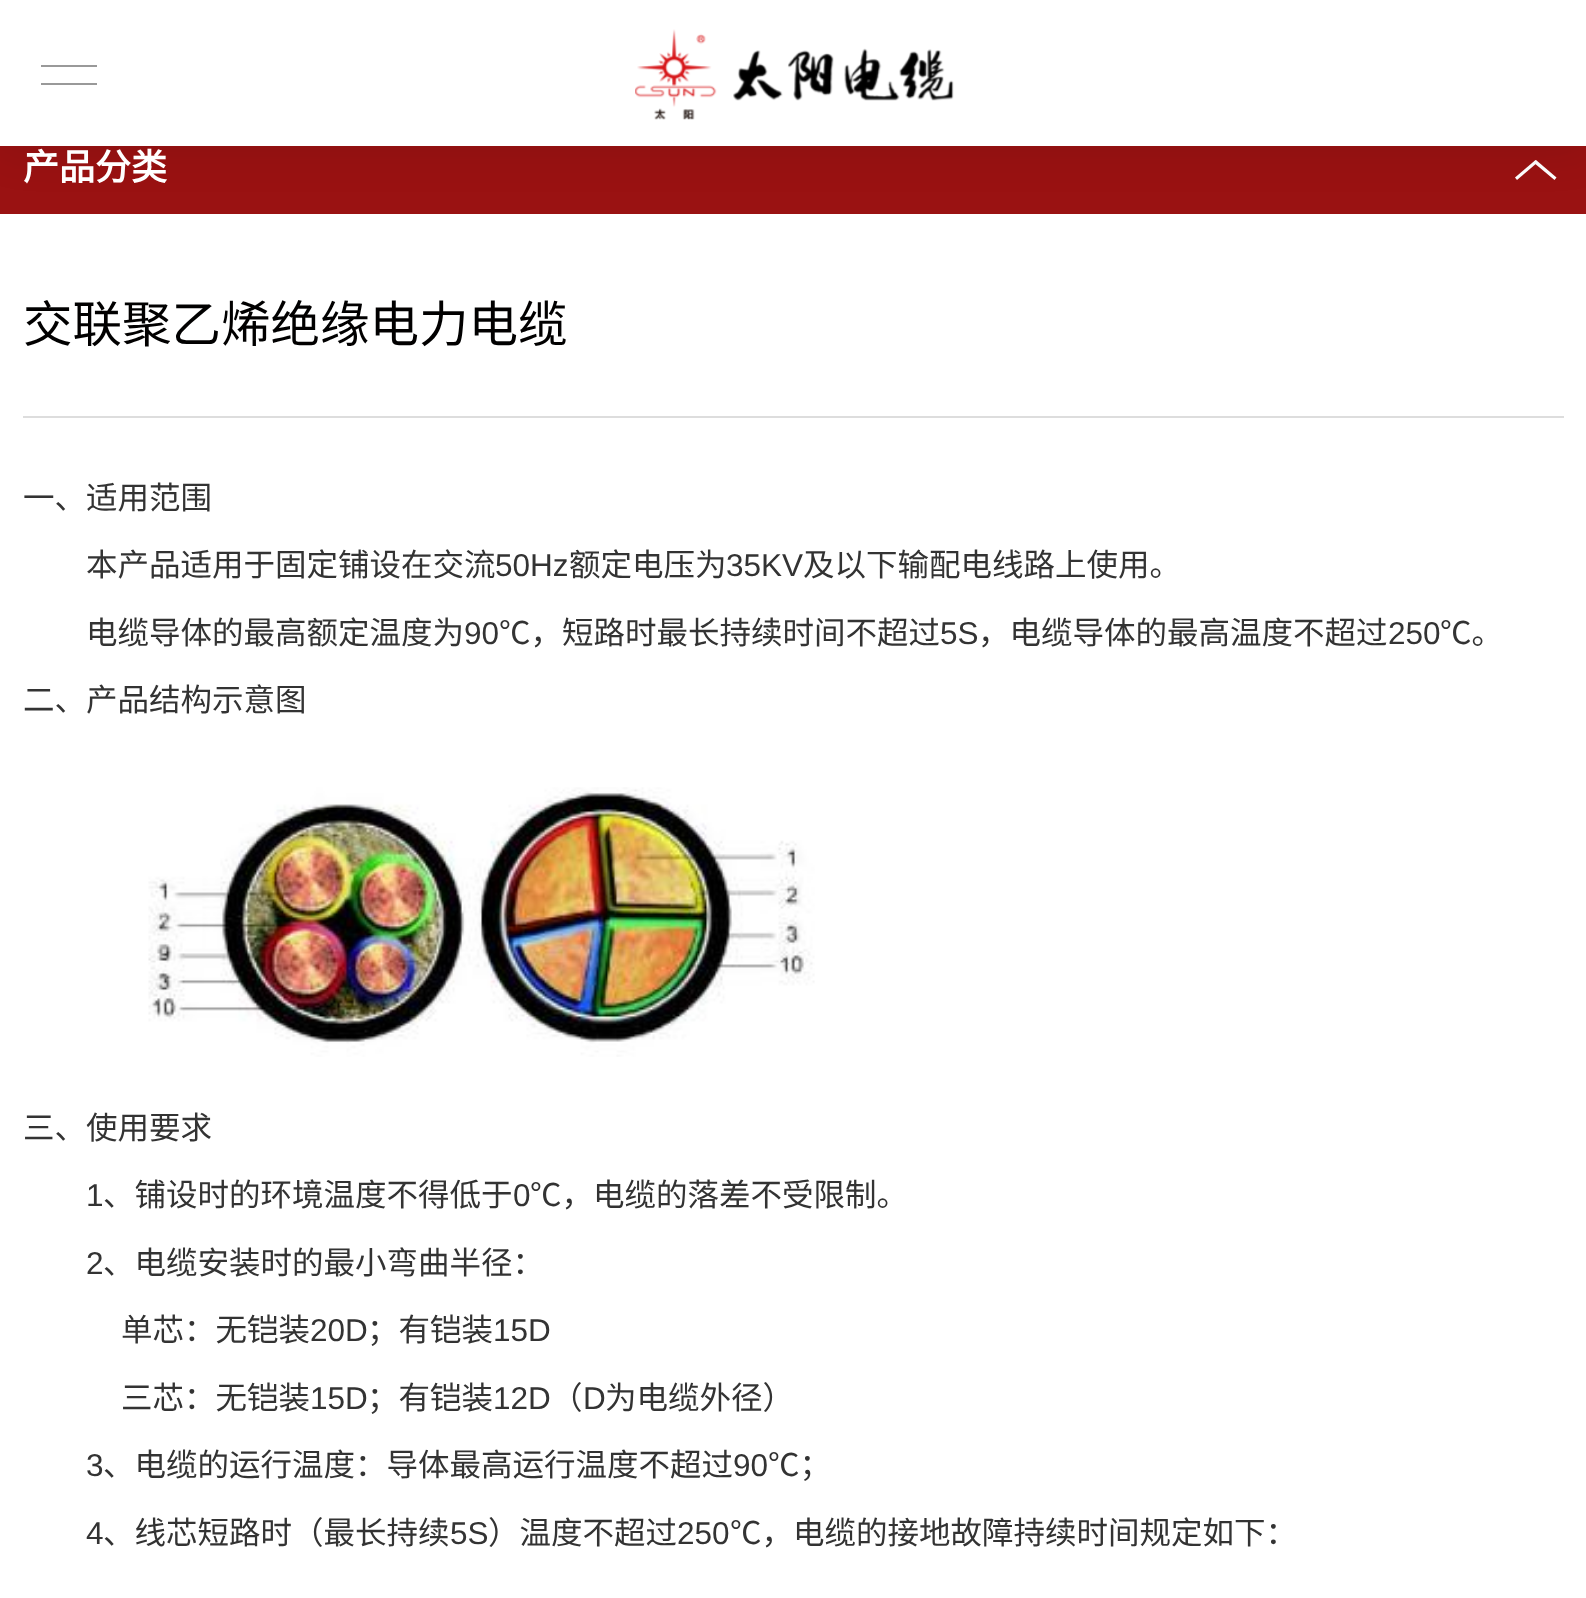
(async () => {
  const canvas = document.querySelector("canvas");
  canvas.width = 1586;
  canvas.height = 1598;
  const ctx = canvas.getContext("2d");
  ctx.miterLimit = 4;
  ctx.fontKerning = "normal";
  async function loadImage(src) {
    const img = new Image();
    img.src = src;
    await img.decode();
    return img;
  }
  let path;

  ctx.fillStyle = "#ffffff";
  ctx.fillRect(0, 0, 1586, 1598);
  ctx.fillStyle = "#9a1212";
  ctx.fillRect(0, 146, 1586, 68);
  ctx.fillStyle = "#ffffff";
  path = new Path2D("M1536 160L1556.5 177.5L1554.5 180L1533.5 162.5Z");
  ctx.fill(path);
  path = new Path2D("M1515 177.5L1535.5 160L1537.5 162.5L1517 180Z");
  ctx.fill(path);
  ctx.fillStyle = "rgba(0, 0, 0, 0.1)";
  ctx.filter = "blur(22.5px)";
  ctx.beginPath();
  ctx.rect(2, 2, 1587, 147);
  ctx.fill();
  ctx.filter = "none";
  for (const [x, y, w, h, color] of [
    [0, 0, 1586, 146, "#ffffff"],
    [41, 65, 56, 2, "#999999"],
    [41, 83, 56, 2, "#999999"],
  ]) {
    ctx.fillStyle = color;
    ctx.fillRect(x, y, w, h);
  }
  ctx.drawImage(await loadImage("img/1.png"), 635, 29, 319, 91);
  ctx.fillStyle = "#dddddd";
  ctx.fillRect(23, 416, 1541, 2);
  ctx.drawImage(await loadImage("img/2.png"), 148, 787, 667, 270);
  ctx.font = "bold 36px Noto Sans CJK SC";
  ctx.fillStyle = "#ffffff";
  ctx.fillText("产品分类", 23, 180);
  ctx.font = "49.5px Noto Sans CJK SC";
  ctx.fillStyle = "#010000";
  ctx.fillText("交联聚乙烯绝缘电力电缆", 23, 342);
  ctx.font = "31.5px Noto Sans CJK SC";
  ctx.fillStyle = "#333333";
  ctx.fillText("一、适用范围", 23, 509);
  ctx.fillText("本产品适用于固定铺设在交流", 86, 576);
  ctx.font = "31.5px Liberation Sans";
  ctx.fillText("50Hz", 495, 576);
  ctx.font = "31.5px Noto Sans CJK SC";
  ctx.fillText("额定电压为", 569, 576);
  ctx.font = "31.5px Liberation Sans";
  ctx.fillText("35KV", 726, 576);
  ctx.font = "31.5px Noto Sans CJK SC";
  ctx.fillText("及以下输配电线路上使用。", 803, 576);
  ctx.fillText("电缆导体的最高额定温度为", 86, 644);
  ctx.font = "31.5px Liberation Sans";
  ctx.fillText("90", 464, 644);
  ctx.font = "31.5px Noto Sans CJK SC";
  ctx.fillText("℃，短路时最长持续时间不超过", 499, 644);
  ctx.font = "31.5px Liberation Sans";
  ctx.fillText("5S", 940, 644);
  ctx.font = "31.5px Noto Sans CJK SC";
  ctx.fillText("，电缆导体的最高温度不超过", 978, 644);
  ctx.font = "31.5px Liberation Sans";
  ctx.fillText("250", 1388, 644);
  ctx.font = "31.5px Noto Sans CJK SC";
  for (const [text, x, y] of [
    ["℃。", 1440, 644],
    ["二、产品结构示意图", 23, 711],
    ["三、使用要求", 23, 1139],
  ]) {
    ctx.fillText(text, x, y);
  }
  ctx.font = "31.5px Liberation Sans";
  ctx.fillText("1", 86, 1206);
  ctx.font = "31.5px Noto Sans CJK SC";
  ctx.fillText("、铺设时的环境温度不得低于", 103, 1206);
  ctx.font = "31.5px Liberation Sans";
  ctx.fillText("0", 513, 1206);
  ctx.font = "31.5px Noto Sans CJK SC";
  ctx.fillText("℃，电缆的落差不受限制。", 530, 1206);
  ctx.font = "31.5px Liberation Sans";
  ctx.fillText("2", 86, 1274);
  ctx.font = "31.5px Noto Sans CJK SC";
  ctx.fillText("、电缆安装时的最小弯曲半径：", 103, 1274);
  ctx.fillText("单芯：无铠装", 121, 1341);
  ctx.font = "31.5px Liberation Sans";
  ctx.fillText("20D", 310, 1341);
  ctx.font = "31.5px Noto Sans CJK SC";
  ctx.fillText("；有铠装", 367, 1341);
  ctx.font = "31.5px Liberation Sans";
  ctx.fillText("15D", 493, 1341);
  ctx.font = "31.5px Noto Sans CJK SC";
  ctx.fillText("三芯：无铠装", 121, 1409);
  ctx.font = "31.5px Liberation Sans";
  ctx.fillText("15D", 310, 1409);
  ctx.font = "31.5px Noto Sans CJK SC";
  ctx.fillText("；有铠装", 367, 1409);
  ctx.font = "31.5px Liberation Sans";
  ctx.fillText("12D", 493, 1409);
  ctx.font = "31.5px Noto Sans CJK SC";
  ctx.fillText("（", 551, 1409);
  ctx.font = "31.5px Liberation Sans";
  ctx.fillText("D", 583, 1409);
  ctx.font = "31.5px Noto Sans CJK SC";
  ctx.fillText("为电缆外径）", 605, 1409);
  ctx.font = "31.5px Liberation Sans";
  ctx.fillText("3", 86, 1476);
  ctx.font = "31.5px Noto Sans CJK SC";
  ctx.fillText("、电缆的运行温度：导体最高运行温度不超过", 103, 1476);
  ctx.font = "31.5px Liberation Sans";
  ctx.fillText("90", 733, 1476);
  ctx.font = "31.5px Noto Sans CJK SC";
  ctx.fillText("℃；", 768, 1476);
  ctx.font = "31.5px Liberation Sans";
  ctx.fillText("4", 86, 1544);
  ctx.font = "31.5px Noto Sans CJK SC";
  ctx.fillText("、线芯短路时（最长持续", 103, 1544);
  ctx.font = "31.5px Liberation Sans";
  ctx.fillText("5S", 450, 1544);
  ctx.font = "31.5px Noto Sans CJK SC";
  ctx.fillText("）温度不超过", 488, 1544);
  ctx.font = "31.5px Liberation Sans";
  ctx.fillText("250", 677, 1544);
  ctx.font = "31.5px Noto Sans CJK SC";
  ctx.fillText("℃，电缆的接地故障持续时间规定如下：", 730, 1544);
})();
